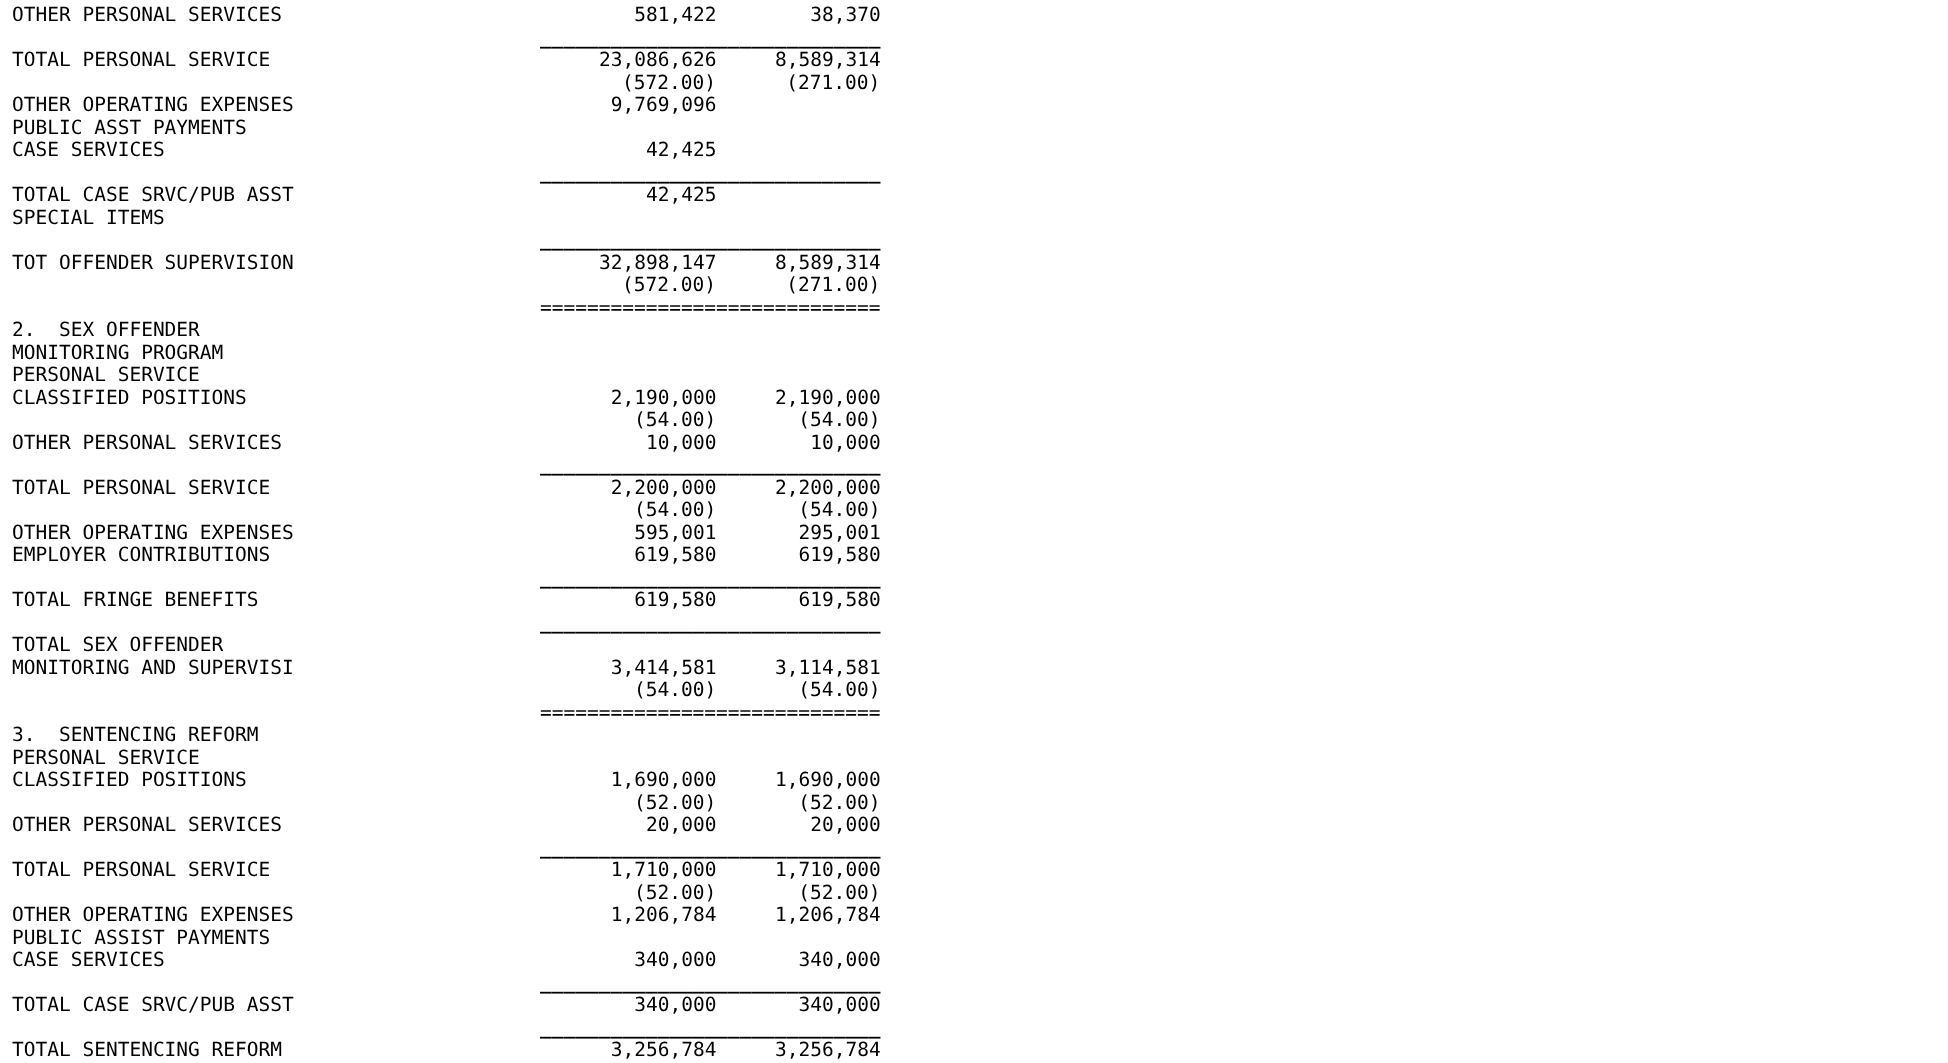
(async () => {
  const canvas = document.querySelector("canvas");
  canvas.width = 1948;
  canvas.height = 1063;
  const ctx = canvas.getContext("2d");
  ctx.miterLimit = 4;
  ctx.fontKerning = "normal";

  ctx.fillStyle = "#ffffff";
  ctx.fillRect(0, 0, 1948, 1063);
  ctx.font = "19.5px DejaVu Sans Mono";
  ctx.fillStyle = "#000000";
  ctx.fillText("OTHER PERSONAL SERVICES                              581,422        38,370", 12, 21);
  ctx.font = "bold 19.5px DejaVu Sans Mono";
  ctx.fillText("_____________________________", 540, 44);
  ctx.font = "19.5px DejaVu Sans Mono";
  for (const [text, x, y] of [
    ["TOTAL PERSONAL SERVICE                            23,086,626     8,589,314", 12, 66],
    ["(572.00)      (271.00)", 622, 89],
    ["OTHER OPERATING EXPENSES                           9,769,096", 12, 111],
    ["PUBLIC ASST PAYMENTS", 12, 134],
    ["CASE SERVICES                                         42,425", 12, 156],
  ]) {
    ctx.fillText(text, x, y);
  }
  ctx.font = "bold 19.5px DejaVu Sans Mono";
  ctx.fillText("_____________________________", 540, 179);
  ctx.font = "19.5px DejaVu Sans Mono";
  ctx.fillText("TOTAL CASE SRVC/PUB ASST                              42,425", 12, 201);
  ctx.fillText("SPECIAL ITEMS", 12, 224);
  ctx.font = "bold 19.5px DejaVu Sans Mono";
  ctx.fillText("_____________________________", 540, 246);
  ctx.font = "19.5px DejaVu Sans Mono";
  for (const [text, x, y] of [
    ["TOT OFFENDER SUPERVISION                          32,898,147     8,589,314", 12, 269],
    ["(572.00)      (271.00)", 622, 291],
    ["=============================", 540, 314],
    ["2.  SEX OFFENDER", 12, 336],
    ["MONITORING PROGRAM", 12, 359],
    ["PERSONAL SERVICE", 12, 381],
    ["CLASSIFIED POSITIONS                               2,190,000     2,190,000", 12, 404],
    ["(54.00)       (54.00)", 634, 426],
    ["OTHER PERSONAL SERVICES                               10,000        10,000", 12, 449],
  ]) {
    ctx.fillText(text, x, y);
  }
  ctx.font = "bold 19.5px DejaVu Sans Mono";
  ctx.fillText("_____________________________", 540, 471);
  ctx.font = "19.5px DejaVu Sans Mono";
  for (const [text, x, y] of [
    ["TOTAL PERSONAL SERVICE                             2,200,000     2,200,000", 12, 494],
    ["(54.00)       (54.00)", 634, 516],
    ["OTHER OPERATING EXPENSES                             595,001       295,001", 12, 539],
    ["EMPLOYER CONTRIBUTIONS                               619,580       619,580", 12, 561],
  ]) {
    ctx.fillText(text, x, y);
  }
  ctx.font = "bold 19.5px DejaVu Sans Mono";
  ctx.fillText("_____________________________", 540, 584);
  ctx.font = "19.5px DejaVu Sans Mono";
  ctx.fillText("TOTAL FRINGE BENEFITS                                619,580       619,580", 12, 606);
  ctx.font = "bold 19.5px DejaVu Sans Mono";
  ctx.fillText("_____________________________", 540, 629);
  ctx.font = "19.5px DejaVu Sans Mono";
  for (const [text, x, y] of [
    ["TOTAL SEX OFFENDER", 12, 651],
    ["MONITORING AND SUPERVISI                           3,414,581     3,114,581", 12, 674],
    ["(54.00)       (54.00)", 634, 696],
    ["=============================", 540, 719],
    ["3.  SENTENCING REFORM", 12, 741],
    ["PERSONAL SERVICE", 12, 764],
    ["CLASSIFIED POSITIONS                               1,690,000     1,690,000", 12, 786],
    ["(52.00)       (52.00)", 634, 809],
    ["OTHER PERSONAL SERVICES                               20,000        20,000", 12, 831],
  ]) {
    ctx.fillText(text, x, y);
  }
  ctx.font = "bold 19.5px DejaVu Sans Mono";
  ctx.fillText("_____________________________", 540, 854);
  ctx.font = "19.5px DejaVu Sans Mono";
  for (const [text, x, y] of [
    ["TOTAL PERSONAL SERVICE                             1,710,000     1,710,000", 12, 876],
    ["(52.00)       (52.00)", 634, 899],
    ["OTHER OPERATING EXPENSES                           1,206,784     1,206,784", 12, 921],
    ["PUBLIC ASSIST PAYMENTS", 12, 944],
    ["CASE SERVICES                                        340,000       340,000", 12, 966],
  ]) {
    ctx.fillText(text, x, y);
  }
  ctx.font = "bold 19.5px DejaVu Sans Mono";
  ctx.fillText("_____________________________", 540, 989);
  ctx.font = "19.5px DejaVu Sans Mono";
  ctx.fillText("TOTAL CASE SRVC/PUB ASST                             340,000       340,000", 12, 1011);
  ctx.font = "bold 19.5px DejaVu Sans Mono";
  ctx.fillText("_____________________________", 540, 1034);
  ctx.font = "19.5px DejaVu Sans Mono";
  ctx.fillText("TOTAL SENTENCING REFORM                            3,256,784     3,256,784", 12, 1056);
})();
